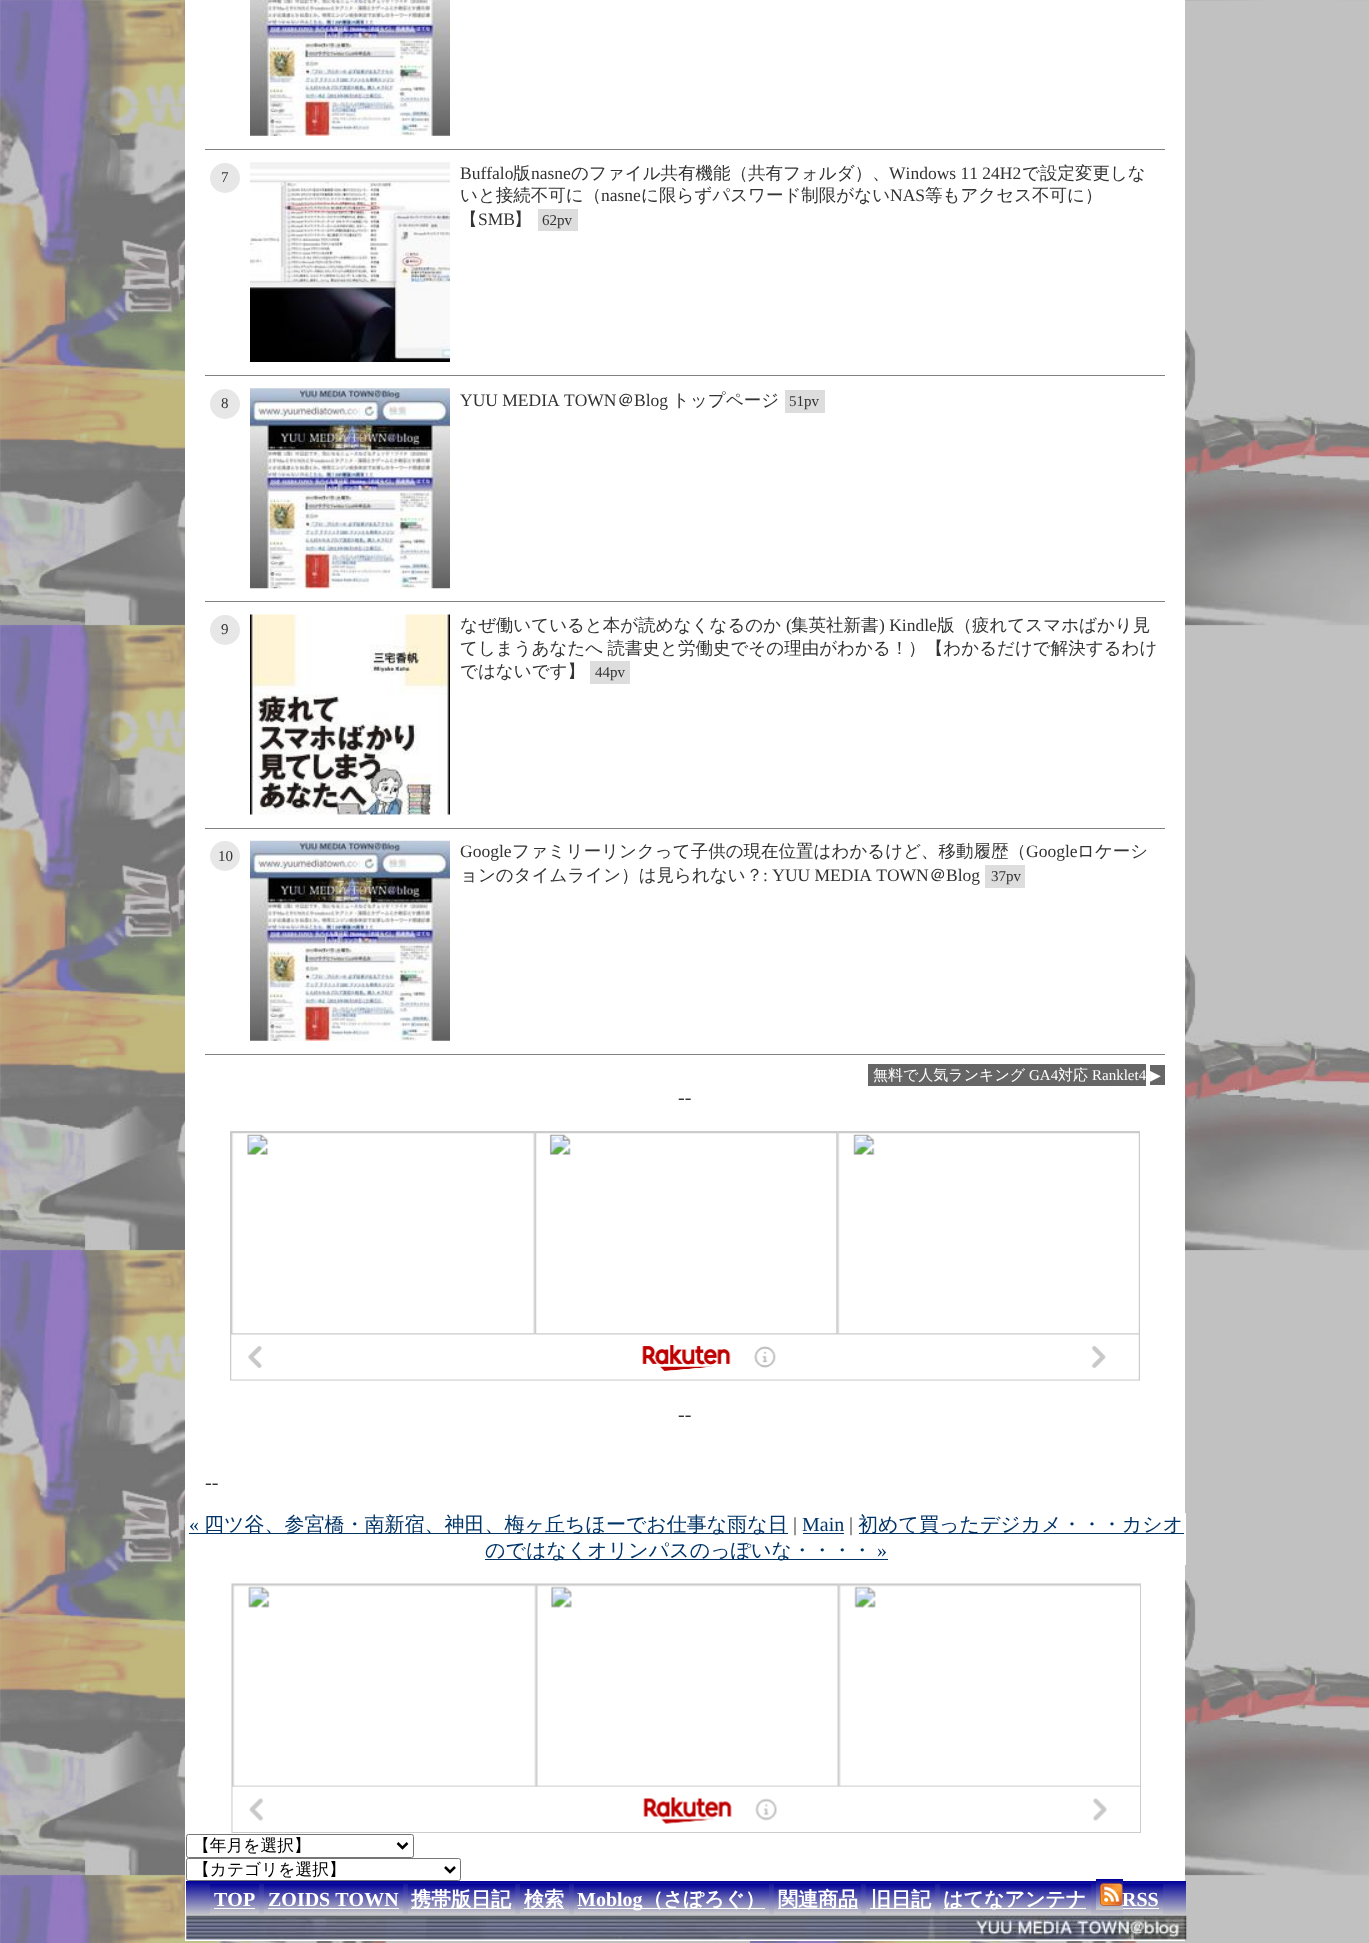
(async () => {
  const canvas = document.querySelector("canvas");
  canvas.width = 1369;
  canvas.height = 1943;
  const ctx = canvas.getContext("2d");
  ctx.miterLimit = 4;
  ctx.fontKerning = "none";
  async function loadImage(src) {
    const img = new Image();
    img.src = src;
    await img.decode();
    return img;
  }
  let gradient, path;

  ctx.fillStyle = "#ffffff";
  ctx.fillRect(0, 0, 1369, 1943);
  ctx.drawImage(await loadImage("img/1.png"), 0, 0, 1369, 1943);
  ctx.fillRect(185, 0, 1000, 1941);
  ctx.fillStyle = "#808080";
  ctx.fillRect(205, 149, 960, 1);
  ctx.drawImage(await loadImage("img/2.png"), 250, 0, 200, 136);
  ctx.fillRect(205, 375, 960, 1);
  ctx.fillStyle = "#e7e7e7";
  ctx.beginPath();
  ctx.arc(225, 178, 15, 0, Math.PI * 2);
  ctx.fill();
  ctx.drawImage(await loadImage("img/3.png"), 250, 162, 200, 200);
  ctx.fillStyle = "#dddddd";
  ctx.fillRect(538, 209, 40, 22);
  ctx.fillStyle = "#808080";
  ctx.fillRect(205, 601, 960, 1);
  ctx.fillStyle = "#e7e7e7";
  ctx.beginPath();
  ctx.arc(225, 404, 15, 0, Math.PI * 2);
  ctx.fill();
  ctx.drawImage(await loadImage("img/4.png"), 250, 388, 200, 201);
  ctx.fillStyle = "#dddddd";
  ctx.fillRect(785, 390, 40, 23);
  ctx.fillStyle = "#808080";
  ctx.fillRect(205, 828, 960, 1);
  ctx.fillStyle = "#e7e7e7";
  ctx.beginPath();
  ctx.arc(225, 630, 15, 0, Math.PI * 2);
  ctx.fill();
  ctx.drawImage(await loadImage("img/5.png"), 250, 614, 200, 201);
  ctx.fillStyle = "#dddddd";
  ctx.fillRect(590, 661, 40, 23);
  ctx.fillStyle = "#808080";
  ctx.fillRect(205, 1054, 960, 1);
  ctx.fillStyle = "#e7e7e7";
  ctx.beginPath();
  ctx.arc(225, 856, 15, 0, Math.PI * 2);
  ctx.fill();
  ctx.drawImage(await loadImage("img/6.png"), 250, 840, 200, 201);
  for (const [x, y, w, h, color] of [
    [985, 865, 40, 23, "#dddddd"],
    [868, 1064, 278, 22, "#666666"],
    [1150, 1065, 15, 20, "#666666"],
  ]) {
    ctx.fillStyle = color;
    ctx.fillRect(x, y, w, h);
  }
  ctx.drawImage(await loadImage("img/7.png"), 230, 1131, 910, 250);
  for (const [x, y, w, h, color] of [
    [1185, 1513, 1, 52, "#ffffff"],
    [189, 1533, 599, 1, "#003366"],
    [803, 1533, 41, 1, "#003366"],
    [859, 1533, 325, 1, "#003366"],
    [485, 1559, 403, 1, "#003366"],
  ]) {
    ctx.fillStyle = color;
    ctx.fillRect(x, y, w, h);
  }
  ctx.drawImage(await loadImage("img/8.png"), 231, 1583, 910, 250);
  ctx.beginPath();
  ctx.roundRect(186.5, 1834.5, 227, 23, 2);
  ctx.strokeStyle = "#767676";
  ctx.stroke();
  path = new Path2D("M397.5 1843L402.5 1848L407.5 1843");
  ctx.strokeStyle = "#000000";
  ctx.lineWidth = 2.5;
  ctx.stroke(path);
  ctx.beginPath();
  ctx.roundRect(186.5, 1858.5, 274, 22, 2);
  ctx.strokeStyle = "#767676";
  ctx.lineWidth = 1;
  ctx.stroke();
  path = new Path2D("M445 1867L450 1872L455 1867");
  ctx.strokeStyle = "#000000";
  ctx.lineWidth = 2.5;
  ctx.stroke(path);
  gradient = ctx.createLinearGradient(186, 1881, 186, 1916);
  gradient.addColorStop(0, "#000099");
  gradient.addColorStop(1, "#cccccc");
  ctx.fillStyle = gradient;
  ctx.fillRect(186, 1881, 1000, 35);
  gradient = ctx.createLinearGradient(210, 1884, 210, 1914);
  gradient.addColorStop(0, "#000099");
  gradient.addColorStop(1, "#cccccc");
  ctx.fillStyle = gradient;
  ctx.fillRect(210, 1884, 49, 30);
  ctx.fillStyle = "#ffffff";
  ctx.fillRect(214, 1908, 41, 1);
  gradient = ctx.createLinearGradient(264, 1884, 264, 1914);
  gradient.addColorStop(0, "#000099");
  gradient.addColorStop(1, "#cccccc");
  ctx.fillStyle = gradient;
  ctx.fillRect(264, 1884, 139, 30);
  ctx.fillStyle = "#ffffff";
  ctx.fillRect(268, 1908, 131, 1);
  gradient = ctx.createLinearGradient(408, 1884, 408, 1914);
  gradient.addColorStop(0, "#000099");
  gradient.addColorStop(1, "#cccccc");
  ctx.fillStyle = gradient;
  ctx.fillRect(408, 1884, 107, 30);
  ctx.fillStyle = "#ffffff";
  ctx.fillRect(411, 1908, 100, 1);
  gradient = ctx.createLinearGradient(520, 1884, 520, 1914);
  gradient.addColorStop(0, "#000099");
  gradient.addColorStop(1, "#cccccc");
  ctx.fillStyle = gradient;
  ctx.fillRect(520, 1884, 49, 30);
  ctx.fillStyle = "#ffffff";
  ctx.fillRect(524, 1908, 40, 1);
  gradient = ctx.createLinearGradient(574, 1884, 574, 1914);
  gradient.addColorStop(0, "#000099");
  gradient.addColorStop(1, "#cccccc");
  ctx.fillStyle = gradient;
  ctx.fillRect(574, 1884, 195, 30);
  ctx.fillStyle = "#ffffff";
  ctx.fillRect(578, 1908, 187, 1);
  gradient = ctx.createLinearGradient(774, 1884, 774, 1914);
  gradient.addColorStop(0, "#000099");
  gradient.addColorStop(1, "#cccccc");
  ctx.fillStyle = gradient;
  ctx.fillRect(774, 1884, 87, 30);
  ctx.fillStyle = "#ffffff";
  ctx.fillRect(778, 1908, 80, 1);
  gradient = ctx.createLinearGradient(866, 1884, 866, 1914);
  gradient.addColorStop(0, "#000099");
  gradient.addColorStop(1, "#cccccc");
  ctx.fillStyle = gradient;
  ctx.fillRect(866, 1884, 69, 30);
  ctx.fillStyle = "#ffffff";
  ctx.fillRect(870, 1908, 60, 1);
  gradient = ctx.createLinearGradient(940, 1884, 940, 1914);
  gradient.addColorStop(0, "#000099");
  gradient.addColorStop(1, "#cccccc");
  ctx.fillStyle = gradient;
  ctx.fillRect(940, 1884, 151, 30);
  ctx.fillStyle = "#ffffff";
  ctx.fillRect(944, 1908, 142, 1);
  gradient = ctx.createLinearGradient(1096, 1879, 1096, 1910);
  gradient.addColorStop(0, "#000099");
  gradient.addColorStop(1, "#cccccc");
  ctx.fillStyle = gradient;
  ctx.fillRect(1096, 1879, 27, 31);
  ctx.drawImage(await loadImage("img/9.png"), 1100, 1883, 23, 23);
  gradient = ctx.createLinearGradient(1123, 1884, 1123, 1914);
  gradient.addColorStop(0, "#000099");
  gradient.addColorStop(1, "#cccccc");
  ctx.fillStyle = gradient;
  ctx.fillRect(1123, 1884, 40, 30);
  ctx.fillStyle = "#ffffff";
  ctx.fillRect(1123, 1908, 36, 1);
  ctx.drawImage(await loadImage("img/10.png"), 186, 1915, 1001, 25);
  ctx.font = "15px Liberation Serif";
  ctx.fillStyle = "#333333";
  ctx.fillText("7", 221, 182);
  ctx.font = "17.5px Liberation Serif";
  ctx.fillText("Buffalo", 460, 179);
  ctx.font = "500 17.5px WenQuanYi Zen Hei";
  ctx.fillText("版", 513, 179);
  ctx.font = "17.5px Liberation Serif";
  ctx.fillText("nasne", 531, 179);
  ctx.font = "500 17.5px WenQuanYi Zen Hei";
  ctx.fillText("のファイル共有機能（共有フォルダ）、", 571, 179);
  ctx.font = "17.5px Liberation Serif";
  ctx.fillText("Windows 11 24H2", 889, 179);
  ctx.font = "500 17.5px WenQuanYi Zen Hei";
  ctx.fillText("で設定変更しな", 1022, 179);
  ctx.fillText("いと接続不可に（", 460, 201);
  ctx.font = "17.5px Liberation Serif";
  ctx.fillText("nasne", 601, 201);
  ctx.font = "500 17.5px WenQuanYi Zen Hei";
  ctx.fillText("に限らずパスワード制限がない", 641, 201);
  ctx.font = "17.5px Liberation Serif";
  ctx.fillText("NAS", 890, 201);
  ctx.font = "500 17.5px WenQuanYi Zen Hei";
  ctx.fillText("等もアクセス不可に）", 925, 201);
  ctx.fillText("【", 460, 225);
  ctx.font = "17.5px Liberation Serif";
  ctx.fillText("SMB", 478, 225);
  ctx.font = "500 17.5px WenQuanYi Zen Hei";
  ctx.fillText("】", 514, 225);
  ctx.font = "15px Liberation Serif";
  ctx.fillText("62pv", 542, 225);
  ctx.fillText("8", 221, 408);
  ctx.font = "17.5px Liberation Serif";
  ctx.fillText("YUU MEDIA TOWN", 460, 406);
  ctx.font = "500 17.5px WenQuanYi Zen Hei";
  ctx.fillText("＠", 617, 406);
  ctx.font = "17.5px Liberation Serif";
  ctx.fillText("Blog", 634, 406);
  ctx.font = "500 17.5px WenQuanYi Zen Hei";
  ctx.fillText("トップページ", 672, 406);
  ctx.font = "15px Liberation Serif";
  ctx.fillText("51pv", 789, 406);
  ctx.fillText("9", 221, 634);
  ctx.font = "500 17.5px WenQuanYi Zen Hei";
  ctx.fillText("なぜ働いていると本が読めなくなるのか", 460, 631);
  ctx.font = "17.5px Liberation Serif";
  ctx.fillText("(", 786, 631);
  ctx.font = "500 17.5px WenQuanYi Zen Hei";
  ctx.fillText("集英社新書", 791, 631);
  ctx.font = "17.5px Liberation Serif";
  ctx.fillText(") Kindle", 879, 631);
  ctx.font = "500 17.5px WenQuanYi Zen Hei";
  ctx.fillText("版（疲れてスマホばかり見", 937, 631);
  ctx.wordSpacing = "-1px";
  ctx.fillText("てしまうあなたへ 読書史と労働史でその理由がわかる！）【わかるだけで解決するわけ", 460, 654);
  ctx.wordSpacing = "0px";
  ctx.fillText("ではないです】", 460, 677);
  ctx.font = "15px Liberation Serif";
  ctx.fillText("44pv", 595, 677);
  ctx.fillText("10", 218, 861);
  ctx.font = "17.5px Liberation Serif";
  ctx.fillText("Google", 460, 857);
  ctx.font = "500 17.5px WenQuanYi Zen Hei";
  ctx.fillText("ファミリーリンクって子供の現在位置はわかるけど、移動履歴（", 512, 857);
  ctx.font = "17.5px Liberation Serif";
  ctx.fillText("Google", 1026, 857);
  ctx.font = "500 17.5px WenQuanYi Zen Hei";
  ctx.fillText("ロケーシ", 1077, 857);
  ctx.fillText("ョンのタイムライン）は見られない？", 460, 881);
  ctx.font = "17.5px Liberation Serif";
  ctx.fillText(": YUU MEDIA TOWN", 763, 881);
  ctx.font = "500 17.5px WenQuanYi Zen Hei";
  ctx.fillText("＠", 929, 881);
  ctx.font = "17.5px Liberation Serif";
  ctx.fillText("Blog", 946, 881);
  ctx.font = "15px Liberation Serif";
  ctx.fillText("37pv", 991, 881);
  ctx.font = "500 15px WenQuanYi Zen Hei";
  ctx.fillStyle = "#ffffff";
  ctx.fillText("無料で人気ランキング", 873, 1080);
  ctx.font = "15px Liberation Serif";
  ctx.fillText("GA4", 1029, 1080);
  ctx.font = "500 15px WenQuanYi Zen Hei";
  ctx.fillText("対応", 1058, 1080);
  ctx.font = "15px Liberation Serif";
  ctx.fillText("Ranklet4", 1092, 1080);
  ctx.font = "14px DejaVu Sans";
  ctx.fillText("▶︎", 1150, 1080);
  ctx.font = "20px Liberation Serif";
  ctx.fillStyle = "#333333";
  for (const [text, x, y] of [
    ["--", 678, 1104],
    ["--", 678, 1421],
    ["--", 205, 1489],
  ]) {
    ctx.fillText(text, x, y);
  }
  ctx.fillStyle = "#003366";
  ctx.fillText("«", 189, 1531);
  ctx.font = "500 20px WenQuanYi Zen Hei";
  ctx.fillText("四ツ谷、参宮橋・南新宿、神田、梅ヶ丘ちほーでお仕事な雨な日", 204, 1531);
  ctx.font = "20px Liberation Serif";
  ctx.fillStyle = "#333333";
  ctx.fillText("|", 793, 1531);
  ctx.fillStyle = "#003366";
  ctx.fillText("Main", 802, 1531);
  ctx.fillStyle = "#333333";
  ctx.fillText("|", 849, 1531);
  ctx.font = "500 20px WenQuanYi Zen Hei";
  ctx.fillStyle = "#003366";
  ctx.fillText("初めて買ったデジカメ・・・カシオ", 858, 1531);
  ctx.fillText("のではなくオリンパスのっぽいな・・・・", 485, 1557);
  ctx.font = "20px Liberation Serif";
  ctx.fillText("»", 877, 1557);
  ctx.font = "500 16.75px WenQuanYi Zen Hei";
  ctx.fillStyle = "#000000";
  ctx.fillText("【年月を選択】", 193, 1851);
  ctx.fillText("【カテゴリを選択】", 193, 1875);
  ctx.font = "bold 20px Liberation Serif";
  ctx.fillStyle = "#ffffff";
  ctx.fillText("TOP", 214, 1906);
  ctx.fillText("ZOIDS TOWN", 268, 1906);
  ctx.font = "bold 20px WenQuanYi Zen Hei";
  ctx.fillText("携帯版日記", 411, 1906);
  ctx.fillText("検索", 524, 1906);
  ctx.font = "bold 20px Liberation Serif";
  ctx.fillText("Moblog", 577, 1906);
  ctx.font = "bold 20px WenQuanYi Zen Hei";
  for (const [text, x, y] of [
    ["（さぽろぐ）", 643, 1906],
    ["関連商品", 778, 1906],
    ["旧日記", 871, 1906],
    ["はてなアンテナ", 943, 1906],
  ]) {
    ctx.fillText(text, x, y);
  }
  ctx.font = "bold 20px Liberation Serif";
  ctx.fillText("RSS", 1122, 1906);
})();
